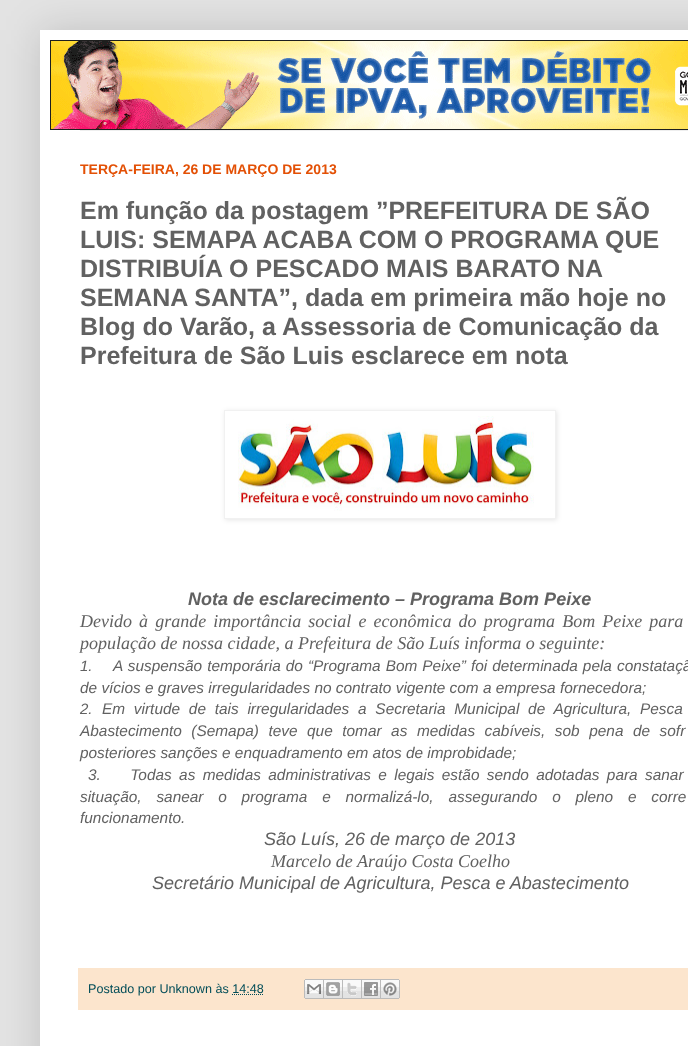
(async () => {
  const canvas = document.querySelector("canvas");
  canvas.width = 688;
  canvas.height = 1046;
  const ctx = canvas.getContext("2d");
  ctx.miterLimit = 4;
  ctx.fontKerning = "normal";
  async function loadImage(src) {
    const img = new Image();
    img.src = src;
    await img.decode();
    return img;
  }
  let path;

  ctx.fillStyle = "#e3e3e3";
  ctx.fillRect(0, 0, 688, 1046);
  ctx.fillStyle = "rgba(0, 0, 0, 0.15)";
  ctx.filter = "blur(20px)";
  ctx.beginPath();
  ctx.rect(40, 30, 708, 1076);
  ctx.fill();
  ctx.filter = "none";
  ctx.fillStyle = "#ffffff";
  ctx.fillRect(40, 30, 648, 1016);
  ctx.drawImage(await loadImage("img/1.png"), 50, 40, 638, 90);
  ctx.fillStyle = "#eeeeee";
  ctx.fillRect(80, 130, 608, 1);
  ctx.save();
  path = new Path2D("M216 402H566V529H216ZM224 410H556V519H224Z");
  ctx.clip(path, "evenodd");
  ctx.fillStyle = "rgba(0, 0, 0, 0.1)";
  ctx.filter = "blur(2.5px)";
  ctx.beginPath();
  ctx.rect(225, 411, 332, 109);
  ctx.fill();
  ctx.filter = "none";
  ctx.restore();
  ctx.strokeStyle = "#f1f1f1";
  ctx.strokeRect(224.5, 410.5, 331, 108);
  ctx.drawImage(await loadImage("img/2.png"), 238, 416, 296, 95);
  ctx.fillStyle = "#fce5cd";
  ctx.fillRect(78, 968, 610, 42);
  ctx.drawImage(await loadImage("img/3.png"), 304, 979, 20, 20);
  ctx.drawImage(await loadImage("img/4.png"), 324, 979, 19, 20);
  ctx.drawImage(await loadImage("img/5.png"), 343, 979, 19, 20);
  ctx.drawImage(await loadImage("img/6.png"), 362, 979, 19, 20);
  ctx.drawImage(await loadImage("img/7.png"), 381, 979, 19, 20);
  path = new Path2D("M232 994.5H264");
  ctx.strokeStyle = "#024d58";
  ctx.setLineDash([1, 1]);
  ctx.stroke(path);
  ctx.font = "bold 14px Liberation Sans";
  ctx.fillStyle = "#e35005";
  ctx.fillText("TERÇA-FEIRA, 26 DE MARÇO DE 2013", 80, 174);
  ctx.font = "bold 25px Liberation Sans";
  ctx.fillStyle = "#616161";
  for (const [text, x, y] of [
    ["Em função da postagem ”PREFEITURA DE SÃO", 80, 219],
    ["LUIS: SEMAPA ACABA COM O PROGRAMA QUE", 80, 248],
    ["DISTRIBUÍA O PESCADO MAIS BARATO NA", 80, 277],
    ["SEMANA SANTA”, dada em primeira mão hoje no", 80, 306],
    ["Blog do Varão, a Assessoria de Comunicação da", 80, 335],
    ["Prefeitura de São Luis esclarece em nota", 80, 364],
  ]) {
    ctx.fillText(text, x, y);
  }
  ctx.font = "italic bold 18px Liberation Sans";
  ctx.fillText("Nota de esclarecimento – Programa Bom Peixe", 188, 605);
  ctx.wordSpacing = "2.6px";
  ctx.font = "italic 18px Liberation Serif";
  ctx.fillText("Devido à grande importância social e econômica do programa Bom Peixe para", 80, 627);
  ctx.wordSpacing = "0px";
  ctx.fillText("população de nossa cidade, a Prefeitura de São Luís informa o seguinte:", 80, 649);
  ctx.font = "italic 15px Liberation Sans";
  ctx.fillText("1.", 80, 671);
  ctx.wordSpacing = "0.75px";
  ctx.font = "italic 15.4px Liberation Sans";
  ctx.fillText("A suspensão temporária do “Programa Bom Peixe” foi determinada pela constataçã", 113, 671);
  ctx.wordSpacing = "0px";
  ctx.fillText("de vícios e graves irregularidades no contrato vigente com a empresa fornecedora;", 80, 693);
  ctx.font = "italic 15px Liberation Sans";
  ctx.fillText("2.", 80, 714);
  ctx.wordSpacing = "4.5px";
  ctx.font = "italic 15.4px Liberation Sans";
  ctx.fillText("Em virtude de tais irregularidades a Secretaria Municipal de Agricultura, Pesca", 102, 714);
  ctx.wordSpacing = "5.25px";
  ctx.fillText("Abastecimento (Semapa) teve que tomar as medidas cabíveis, sob pena de sofr", 80, 736);
  ctx.wordSpacing = "0px";
  ctx.fillText("posteriores sanções e enquadramento em atos de improbidade;", 80, 758);
  ctx.wordSpacing = "3.1px";
  ctx.fillText("3.    Todas as medidas administrativas e legais estão sendo adotadas para sanar", 88, 780);
  ctx.wordSpacing = "10.5px";
  ctx.fillText("situação, sanear o programa e normalizá-lo, assegurando o pleno e corre", 80, 802);
  ctx.wordSpacing = "0px";
  ctx.fillText("funcionamento.", 80, 823);
  ctx.font = "italic 18px Liberation Sans";
  ctx.fillText("São Luís, 26 de março de 2013", 264, 845);
  ctx.font = "italic 18px Liberation Serif";
  ctx.fillText("Marcelo de Araújo Costa Coelho", 271, 867);
  ctx.font = "italic 18px Liberation Sans";
  ctx.fillText("Secretário Municipal de Agricultura, Pesca e Abastecimento", 152, 889);
  ctx.font = "12.6px Liberation Sans";
  ctx.fillStyle = "#024d58";
  ctx.fillText("Postado por Unknown às 14:48", 88, 993);
})();
